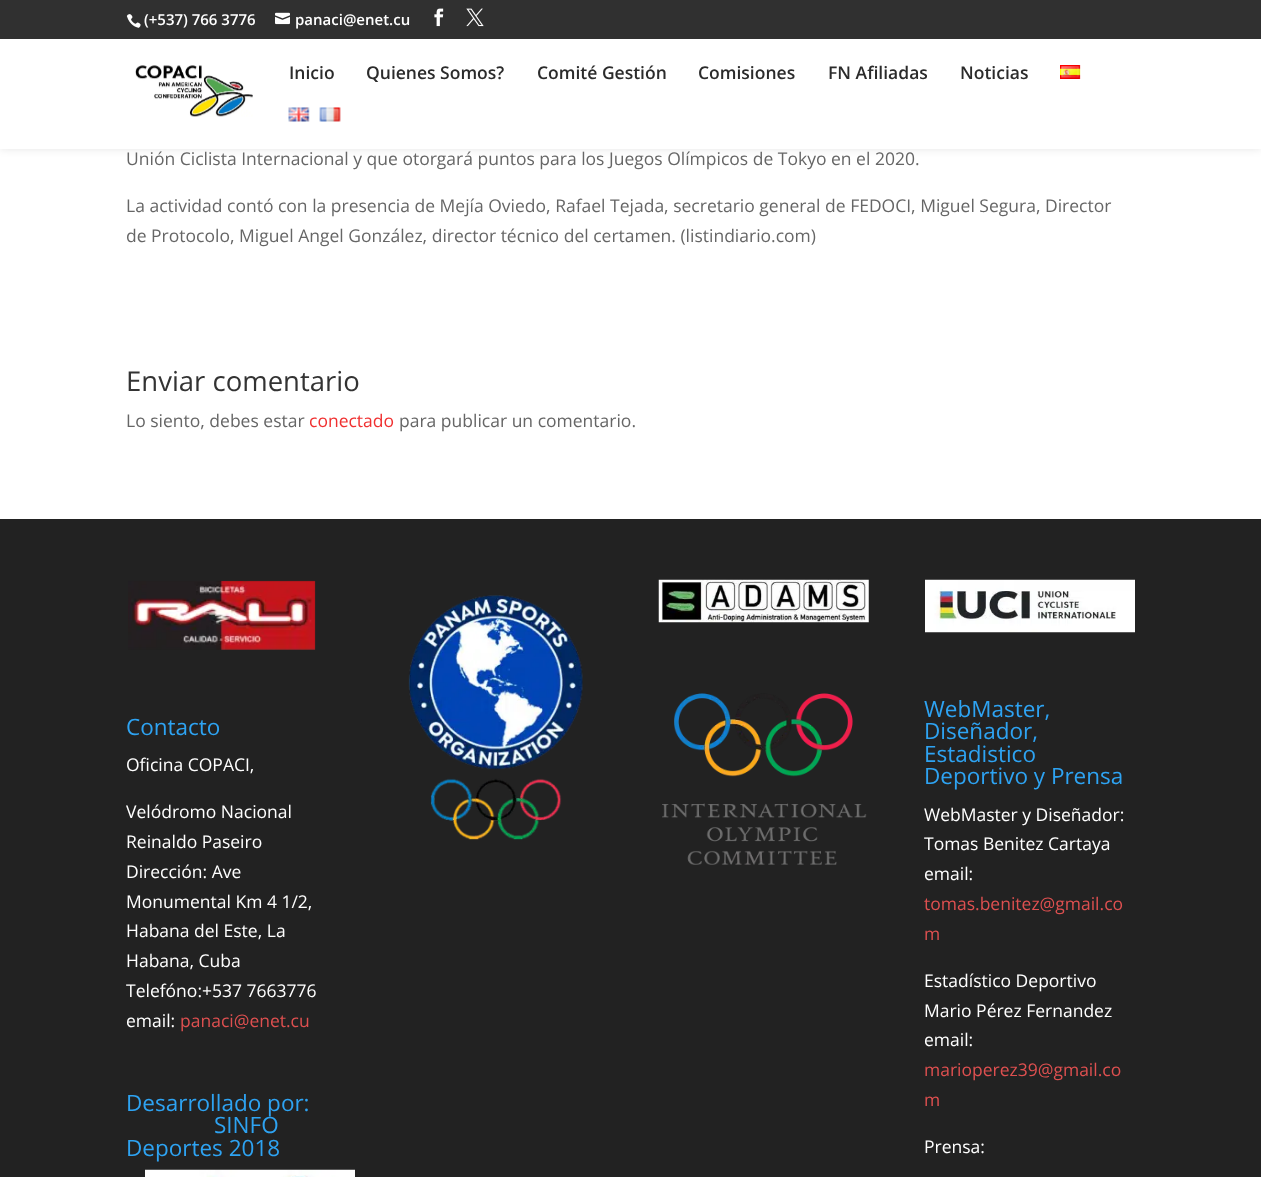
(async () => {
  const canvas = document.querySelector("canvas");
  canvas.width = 1261;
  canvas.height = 1177;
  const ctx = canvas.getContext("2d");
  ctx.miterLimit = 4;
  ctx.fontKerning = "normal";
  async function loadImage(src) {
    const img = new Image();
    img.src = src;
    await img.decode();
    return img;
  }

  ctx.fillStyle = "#ffffff";
  ctx.fillRect(0, 0, 1261, 1177);
  ctx.fillStyle = "rgba(0, 0, 0, 0.1)";
  ctx.filter = "blur(4.5px)";
  ctx.beginPath();
  ctx.rect(0, 39, 1261, 110);
  ctx.fill();
  ctx.filter = "none";
  ctx.fillStyle = "#303030";
  ctx.fillRect(0, 0, 1261, 39);
  ctx.drawImage(await loadImage("img/1.png"), 126, 14, 15, 14);
  ctx.drawImage(await loadImage("img/2.png"), 275, 12, 15, 13);
  ctx.drawImage(await loadImage("img/3.png"), 434, 8, 10, 19);
  ctx.drawImage(await loadImage("img/4.png"), 466, 8, 18, 19);
  ctx.fillStyle = "#ffffff";
  ctx.fillRect(0, 39, 1261, 110);
  ctx.drawImage(await loadImage("img/5.png"), 135, 65, 118, 52);
  ctx.drawImage(await loadImage("img/6.png"), 1060, 65, 21, 14);
  ctx.drawImage(await loadImage("img/7.png"), 288, 107, 22, 15);
  ctx.drawImage(await loadImage("img/8.png"), 319, 107, 22, 15);
  ctx.fillStyle = "#222222";
  ctx.fillRect(0, 519, 1261, 658);
  ctx.drawImage(await loadImage("img/9.png"), 128, 580, 188, 70);
  ctx.drawImage(await loadImage("img/10.png"), 145, 1169, 210, 8);
  ctx.drawImage(await loadImage("img/11.png"), 408, 595, 175, 245);
  ctx.drawImage(await loadImage("img/12.png"), 658, 579, 211, 44);
  ctx.drawImage(await loadImage("img/13.png"), 662, 693, 205, 172);
  ctx.drawImage(await loadImage("img/14.png"), 925, 579, 210, 54);
  ctx.font = "600 15px Open Sans";
  ctx.fillStyle = "#ffffff";
  ctx.fillText("(+537) 766 3776", 144, 25);
  ctx.fillText("panaci@enet.cu", 295, 25);
  ctx.font = "600 17.5px Open Sans";
  ctx.fillStyle = "#2b2b2b";
  for (const [text, x, y] of [
    ["Inicio", 289, 79],
    ["Quienes Somos?", 366, 79],
    ["Comité Gestión", 537, 79],
    ["Comisiones", 698, 79],
    ["FN Afiliadas", 828, 79],
    ["Noticias", 960, 79],
  ]) {
    ctx.fillText(text, x, y);
  }
  ctx.font = "17.5px Open Sans";
  ctx.fillStyle = "#666666";
  for (const [text, x, y] of [
    ["Unión Ciclista Internacional y que otorgará puntos para los Juegos Olímpicos de Tokyo en el 2020.", 126, 165],
    ["La actividad contó con la presencia de Mejía Oviedo, Rafael Tejada, secretario general de FEDOCI, Miguel Segura, Director", 126, 212],
    ["de Protocolo, Miguel Angel González, director técnico del certamen. (listindiario.com)", 126, 242],
  ]) {
    ctx.fillText(text, x, y);
  }
  ctx.font = "27.5px Open Sans";
  ctx.fillStyle = "#333333";
  ctx.fillText("Enviar comentario", 126, 391);
  ctx.font = "17.5px Open Sans";
  ctx.fillStyle = "#666666";
  ctx.fillText("Lo siento, debes estar", 126, 427);
  ctx.fillStyle = "#f03030";
  ctx.fillText("conectado", 309, 427);
  ctx.fillStyle = "#666666";
  ctx.fillText("para publicar un comentario.", 399, 427);
  ctx.font = "22.5px Open Sans";
  ctx.fillStyle = "#2ea3f2";
  ctx.fillText("Contacto", 126, 735);
  ctx.font = "17.5px Open Sans";
  ctx.fillStyle = "#ffffff";
  for (const [text, x, y] of [
    ["Oficina COPACI,", 126, 771],
    ["Velódromo Nacional", 126, 818],
    ["Reinaldo Paseiro", 126, 848],
    ["Dirección: Ave", 126, 878],
    ["Monumental Km 4 1/2,", 126, 908],
    ["Habana del Este, La", 126, 937],
    ["Habana, Cuba", 126, 967],
    ["Telefóno:+537 7663776", 126, 997],
    ["email:", 126, 1027],
  ]) {
    ctx.fillText(text, x, y);
  }
  ctx.fillStyle = "#de5050";
  ctx.fillText("panaci@enet.cu", 180, 1027);
  ctx.font = "22.5px Open Sans";
  ctx.fillStyle = "#2ea3f2";
  for (const [text, x, y] of [
    ["Desarrollado por:", 126, 1111],
    ["SINFO", 214, 1133],
    ["Deportes 2018", 126, 1156],
    ["WebMaster,", 924, 717],
    ["Diseñador,", 924, 739],
    ["Estadistico", 924, 762],
    ["Deportivo y Prensa", 924, 784],
  ]) {
    ctx.fillText(text, x, y);
  }
  ctx.font = "17.5px Open Sans";
  ctx.fillStyle = "#ffffff";
  for (const [text, x, y] of [
    ["WebMaster y Diseñador:", 924, 821],
    ["Tomas Benitez Cartaya", 924, 850],
    ["email:", 924, 880],
  ]) {
    ctx.fillText(text, x, y);
  }
  ctx.fillStyle = "#de5050";
  ctx.fillText("tomas.benitez@gmail.co", 924, 910);
  ctx.fillText("m", 924, 940);
  ctx.fillStyle = "#ffffff";
  for (const [text, x, y] of [
    ["Estadístico Deportivo", 924, 987],
    ["Mario Pérez Fernandez", 924, 1017],
    ["email:", 924, 1046],
  ]) {
    ctx.fillText(text, x, y);
  }
  ctx.fillStyle = "#de5050";
  ctx.fillText("marioperez39@gmail.co", 924, 1076);
  ctx.fillText("m", 924, 1106);
  ctx.fillStyle = "#ffffff";
  ctx.fillText("Prensa:", 924, 1153);
})();
